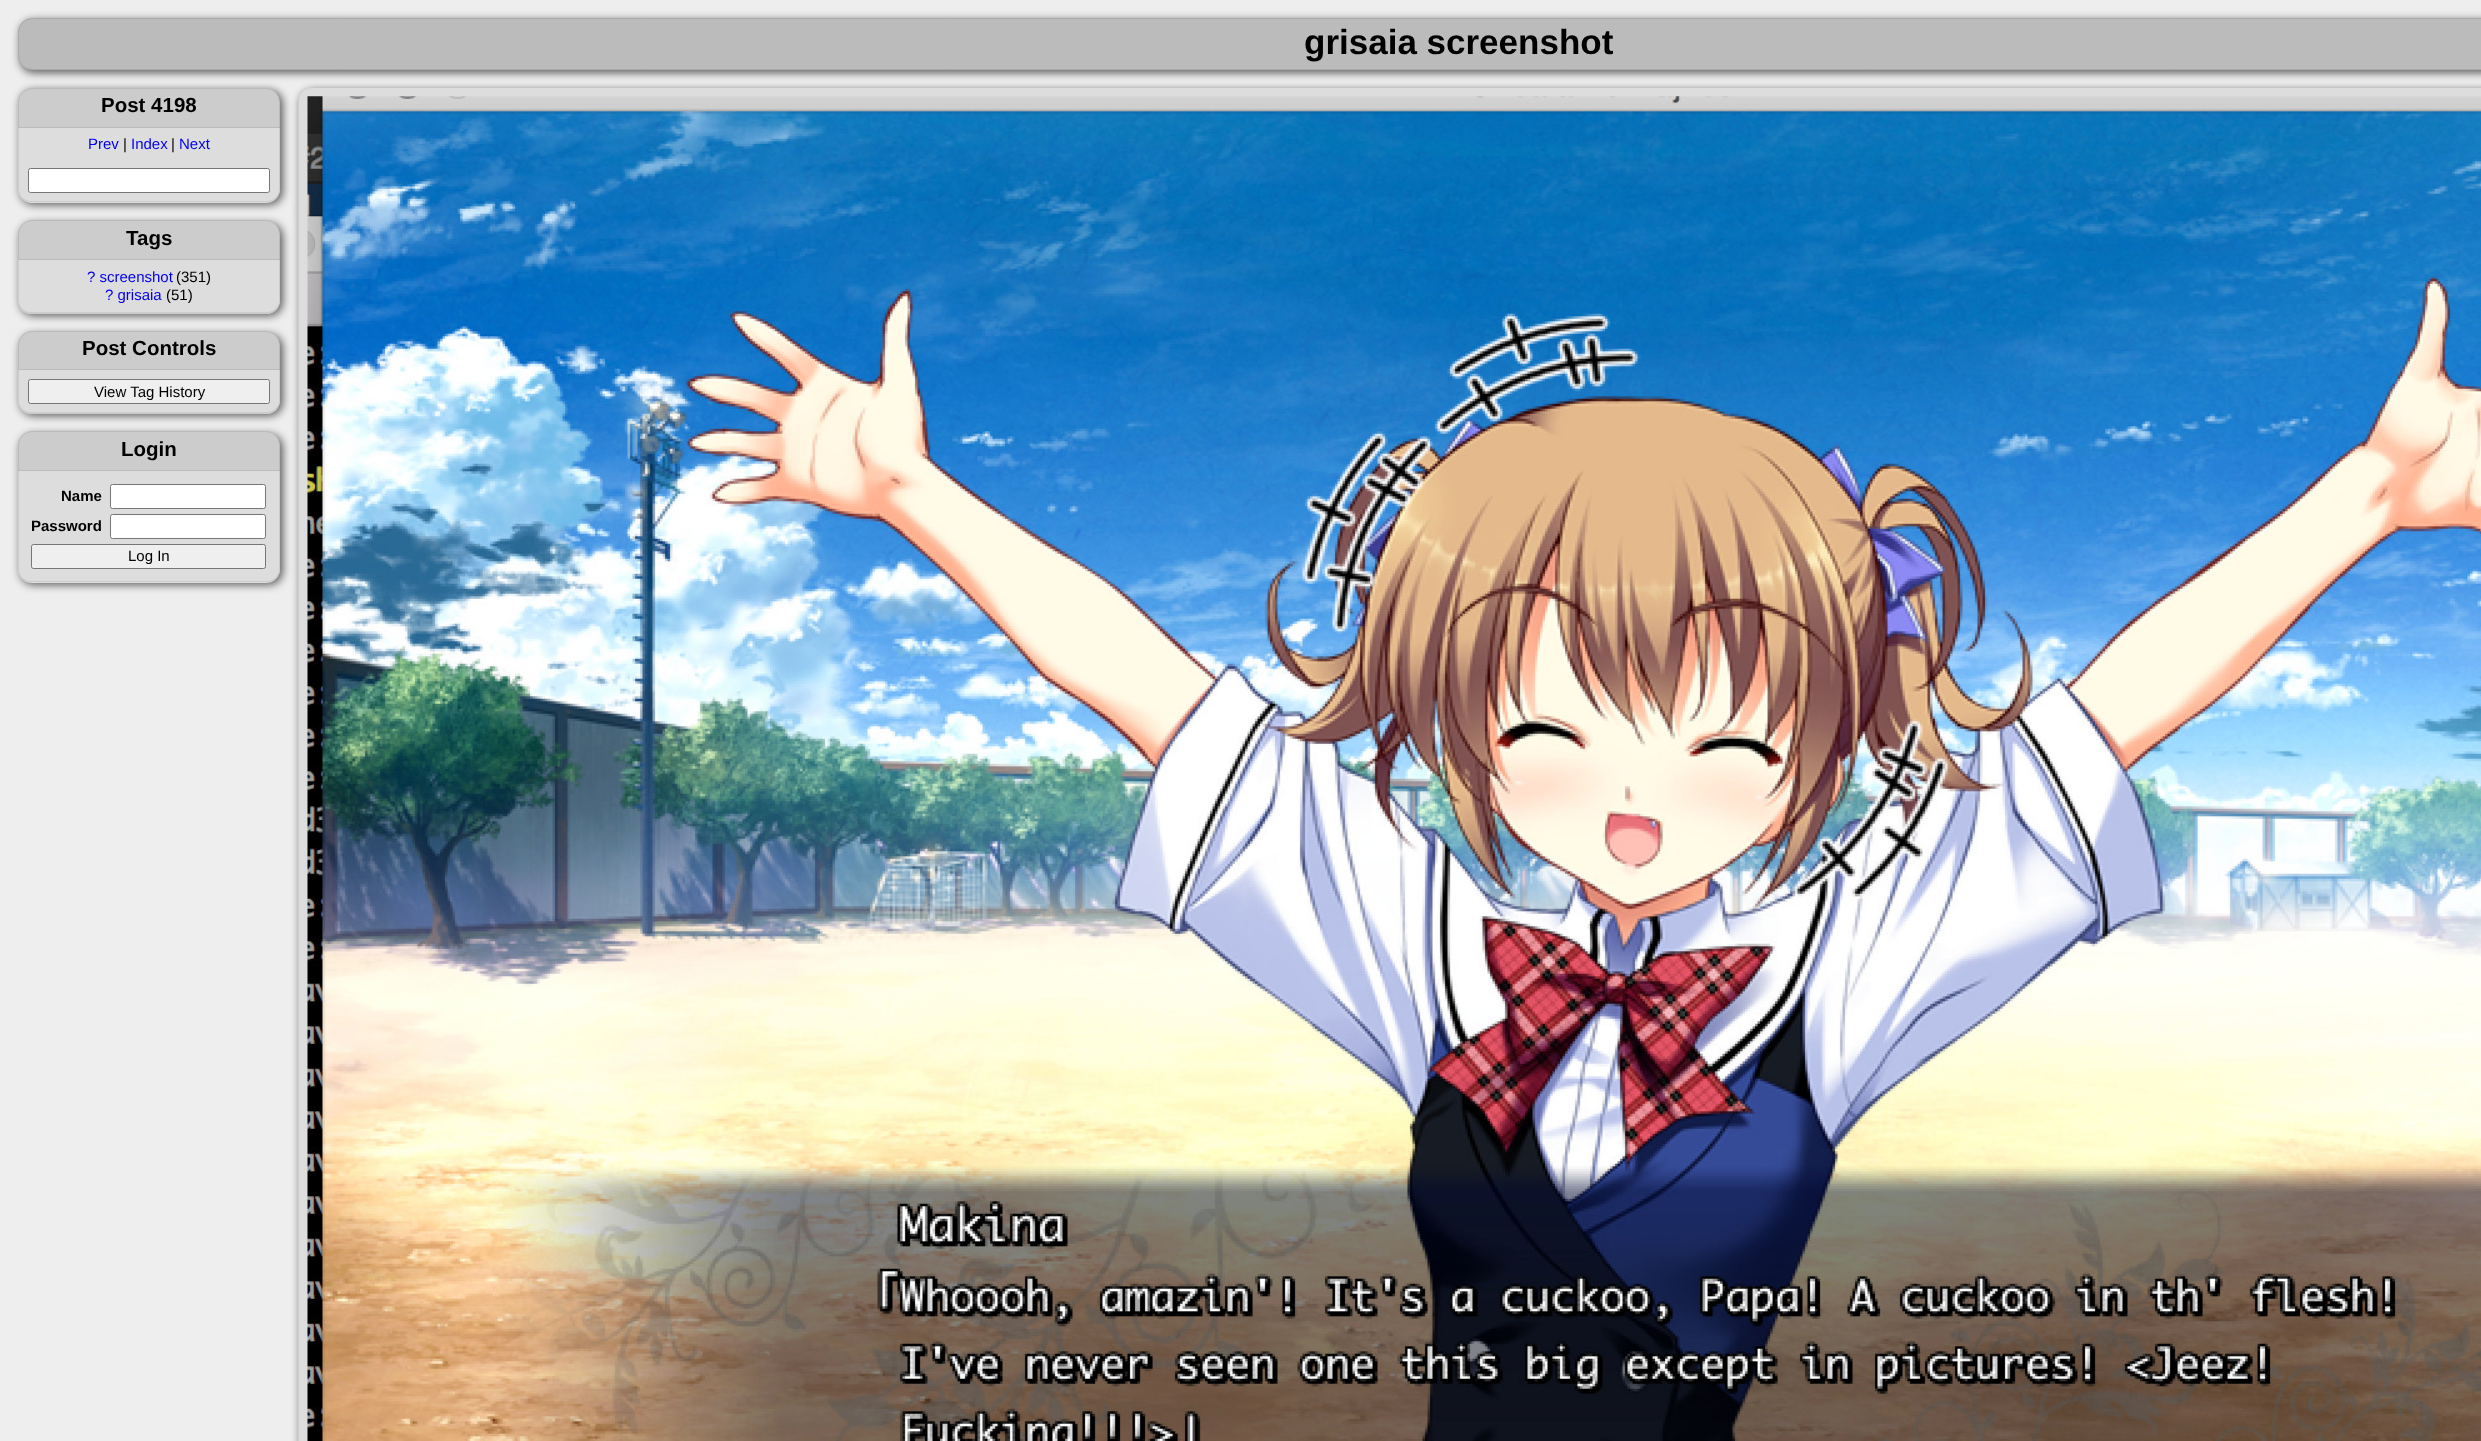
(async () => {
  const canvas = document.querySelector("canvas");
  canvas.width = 2481;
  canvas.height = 1441;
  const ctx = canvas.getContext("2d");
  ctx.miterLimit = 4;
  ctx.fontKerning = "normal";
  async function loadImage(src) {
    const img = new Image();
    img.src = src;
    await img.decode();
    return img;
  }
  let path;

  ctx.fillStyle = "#eeeeee";
  ctx.fillRect(0, 0, 2481, 1441);
  ctx.fillStyle = "rgba(0, 0, 0, 0.6)";
  ctx.filter = "blur(4px)";
  ctx.beginPath();
  ctx.roundRect(20, 20, 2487, 53, 14);
  ctx.fill();
  ctx.filter = "none";
  ctx.fillStyle = "#bbbbbb";
  ctx.beginPath();
  ctx.roundRect(18.5, 18.5, 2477, 51, 13.5);
  ctx.fill();
  ctx.strokeStyle = "#aaaaaa";
  ctx.stroke();
  ctx.fillStyle = "rgba(0, 0, 0, 0.6)";
  ctx.filter = "blur(4px)";
  ctx.beginPath();
  ctx.roundRect(20, 90, 263, 115, 14);
  ctx.fill();
  ctx.filter = "none";
  ctx.fillStyle = "#cccccc";
  ctx.beginPath();
  ctx.roundRect(18.5, 88.5, 261, 39, [13.5, 13.5, 0, 0]);
  ctx.fill();
  ctx.strokeStyle = "#bbbbbb";
  ctx.stroke();
  ctx.fillStyle = "#dddddd";
  ctx.beginPath();
  ctx.roundRect(18, 128, 262, 75, [0, 0, 14, 14]);
  ctx.fill();
  ctx.fillStyle = "#cccccc";
  path = new Path2D("M18 128H280V189C280 197 274 202 267 202H31C23 202 18 197 18 189ZM19 128H279V189C279 196 273 201 267 201H31C24 201 19 196 19 189Z");
  ctx.fill(path, "evenodd");
  ctx.fillStyle = "#ffffff";
  ctx.beginPath();
  ctx.roundRect(28.5, 168.5, 241, 24, 2);
  ctx.fill();
  ctx.strokeStyle = "#767676";
  ctx.stroke();
  ctx.fillStyle = "rgba(0, 0, 0, 0.6)";
  ctx.filter = "blur(4px)";
  ctx.beginPath();
  ctx.roundRect(20, 223, 263, 93, 14);
  ctx.fill();
  ctx.filter = "none";
  ctx.fillStyle = "#cccccc";
  ctx.beginPath();
  ctx.roundRect(18.5, 220.5, 261, 39, [13.5, 13.5, 0, 0]);
  ctx.fill();
  ctx.strokeStyle = "#bbbbbb";
  ctx.stroke();
  ctx.fillStyle = "#dddddd";
  ctx.beginPath();
  ctx.roundRect(18, 260, 262, 54, [0, 0, 14, 14]);
  ctx.fill();
  ctx.fillStyle = "#cccccc";
  path = new Path2D("M18 260H280V301C280 308 274 314 267 314H31C23 314 18 308 18 301ZM19 260H279V301C279 307 273 312 267 312H31C24 312 19 307 19 301Z");
  ctx.fill(path, "evenodd");
  ctx.fillStyle = "rgba(0, 0, 0, 0.6)";
  ctx.filter = "blur(4px)";
  ctx.beginPath();
  ctx.roundRect(20, 334, 263, 82, 14);
  ctx.fill();
  ctx.filter = "none";
  ctx.fillStyle = "#cccccc";
  ctx.beginPath();
  ctx.roundRect(18.5, 331.5, 261, 38, [13.5, 13.5, 0, 0]);
  ctx.fill();
  ctx.stroke();
  ctx.fillStyle = "#dddddd";
  ctx.beginPath();
  ctx.roundRect(18, 370, 262, 44, [0, 0, 14, 14]);
  ctx.fill();
  ctx.fillStyle = "#cccccc";
  path = new Path2D("M18 370H280V401C280 408 274 414 267 414H31C23 414 18 408 18 401ZM19 370H279V401C279 407 273 412 267 412H31C24 412 19 407 19 401Z");
  ctx.fill(path, "evenodd");
  ctx.fillStyle = "#efefef";
  ctx.beginPath();
  ctx.roundRect(28.5, 379.5, 241, 24, 2);
  ctx.fill();
  ctx.strokeStyle = "#767676";
  ctx.stroke();
  ctx.fillStyle = "rgba(0, 0, 0, 0.6)";
  ctx.filter = "blur(4px)";
  ctx.beginPath();
  ctx.roundRect(20, 434, 263, 151, 14);
  ctx.fill();
  ctx.filter = "none";
  ctx.fillStyle = "#cccccc";
  ctx.beginPath();
  ctx.roundRect(18.5, 431.5, 261, 39, [13.5, 13.5, 0, 0]);
  ctx.fill();
  ctx.strokeStyle = "#bbbbbb";
  ctx.stroke();
  ctx.fillStyle = "#dddddd";
  ctx.beginPath();
  ctx.roundRect(18, 471, 262, 112, [0, 0, 14, 14]);
  ctx.fill();
  ctx.fillStyle = "#cccccc";
  path = new Path2D("M18 471H280V569C280 577 274 582 267 582H31C23 582 18 577 18 569ZM19 471H279V569C279 576 273 581 267 581H31C24 581 19 576 19 569Z");
  ctx.fill(path, "evenodd");
  ctx.fillStyle = "#ffffff";
  ctx.beginPath();
  ctx.roundRect(110.5, 484.5, 155, 24, 2);
  ctx.fill();
  ctx.strokeStyle = "#767676";
  ctx.stroke();
  ctx.beginPath();
  ctx.roundRect(110.5, 514.5, 155, 24, 2);
  ctx.fill();
  ctx.stroke();
  ctx.fillStyle = "#efefef";
  ctx.beginPath();
  ctx.roundRect(31.5, 544.5, 234, 24, 2);
  ctx.fill();
  ctx.stroke();
  ctx.fillStyle = "rgba(0, 0, 0, 0.6)";
  ctx.filter = "blur(4px)";
  ctx.beginPath();
  ctx.roundRect(300, 90, 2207, 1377, 14);
  ctx.fill();
  ctx.filter = "none";
  ctx.fillStyle = "#dddddd";
  ctx.beginPath();
  ctx.roundRect(298, 88, 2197, 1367, 14);
  ctx.fill();
  ctx.fillStyle = "#cccccc";
  path = new Path2D("M311 88H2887C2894 88 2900 93 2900 101V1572C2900 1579 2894 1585 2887 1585H311C303 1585 298 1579 298 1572V101C298 93 303 88 311 88ZM311 88H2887C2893 88 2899 93 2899 101V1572C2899 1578 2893 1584 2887 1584H311C304 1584 299 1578 299 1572V101C299 93 304 88 311 88Z");
  ctx.fill(path, "evenodd");
  ctx.drawImage(await loadImage("img/1.png"), 307, 96, 2174, 1345);
  ctx.font = "bold 35px Liberation Sans";
  ctx.fillStyle = "#000000";
  ctx.fillText("grisaia screenshot", 1304, 54);
  ctx.font = "bold 20.5px Liberation Sans";
  ctx.fillText("Post 4198", 101, 112);
  ctx.font = "15px Liberation Sans";
  ctx.fillStyle = "#0000ee";
  ctx.fillText("Prev", 88, 149);
  ctx.fillStyle = "#000000";
  ctx.fillText("|", 123, 149);
  ctx.fillStyle = "#0000ee";
  ctx.fillText("Index", 131, 149);
  ctx.fillStyle = "#000000";
  ctx.fillText("|", 171, 149);
  ctx.fillStyle = "#0000ee";
  ctx.fillText("Next", 179, 149);
  ctx.font = "bold 20.5px Liberation Sans";
  ctx.fillStyle = "#000000";
  ctx.fillText("Tags", 126, 245);
  ctx.font = "15px Liberation Sans";
  ctx.fillStyle = "#0000ee";
  ctx.fillText("? screenshot", 87, 282);
  ctx.fillStyle = "#000000";
  ctx.fillText("(351)", 176, 282);
  ctx.fillStyle = "#0000ee";
  ctx.fillText("? grisaia", 105, 300);
  ctx.fillStyle = "#000000";
  ctx.fillText("(51)", 166, 300);
  ctx.font = "bold 20.5px Liberation Sans";
  ctx.fillText("Post Controls", 82, 355);
  ctx.font = "15px Liberation Sans";
  ctx.fillText("View Tag History", 94, 397);
  ctx.font = "bold 20.5px Liberation Sans";
  ctx.fillText("Login", 121, 456);
  ctx.font = "bold 15px Liberation Sans";
  ctx.fillText("Name", 61, 501);
  ctx.fillText("Password", 31, 531);
  ctx.font = "15px Liberation Sans";
  ctx.fillText("Log In", 128, 561);
})();
